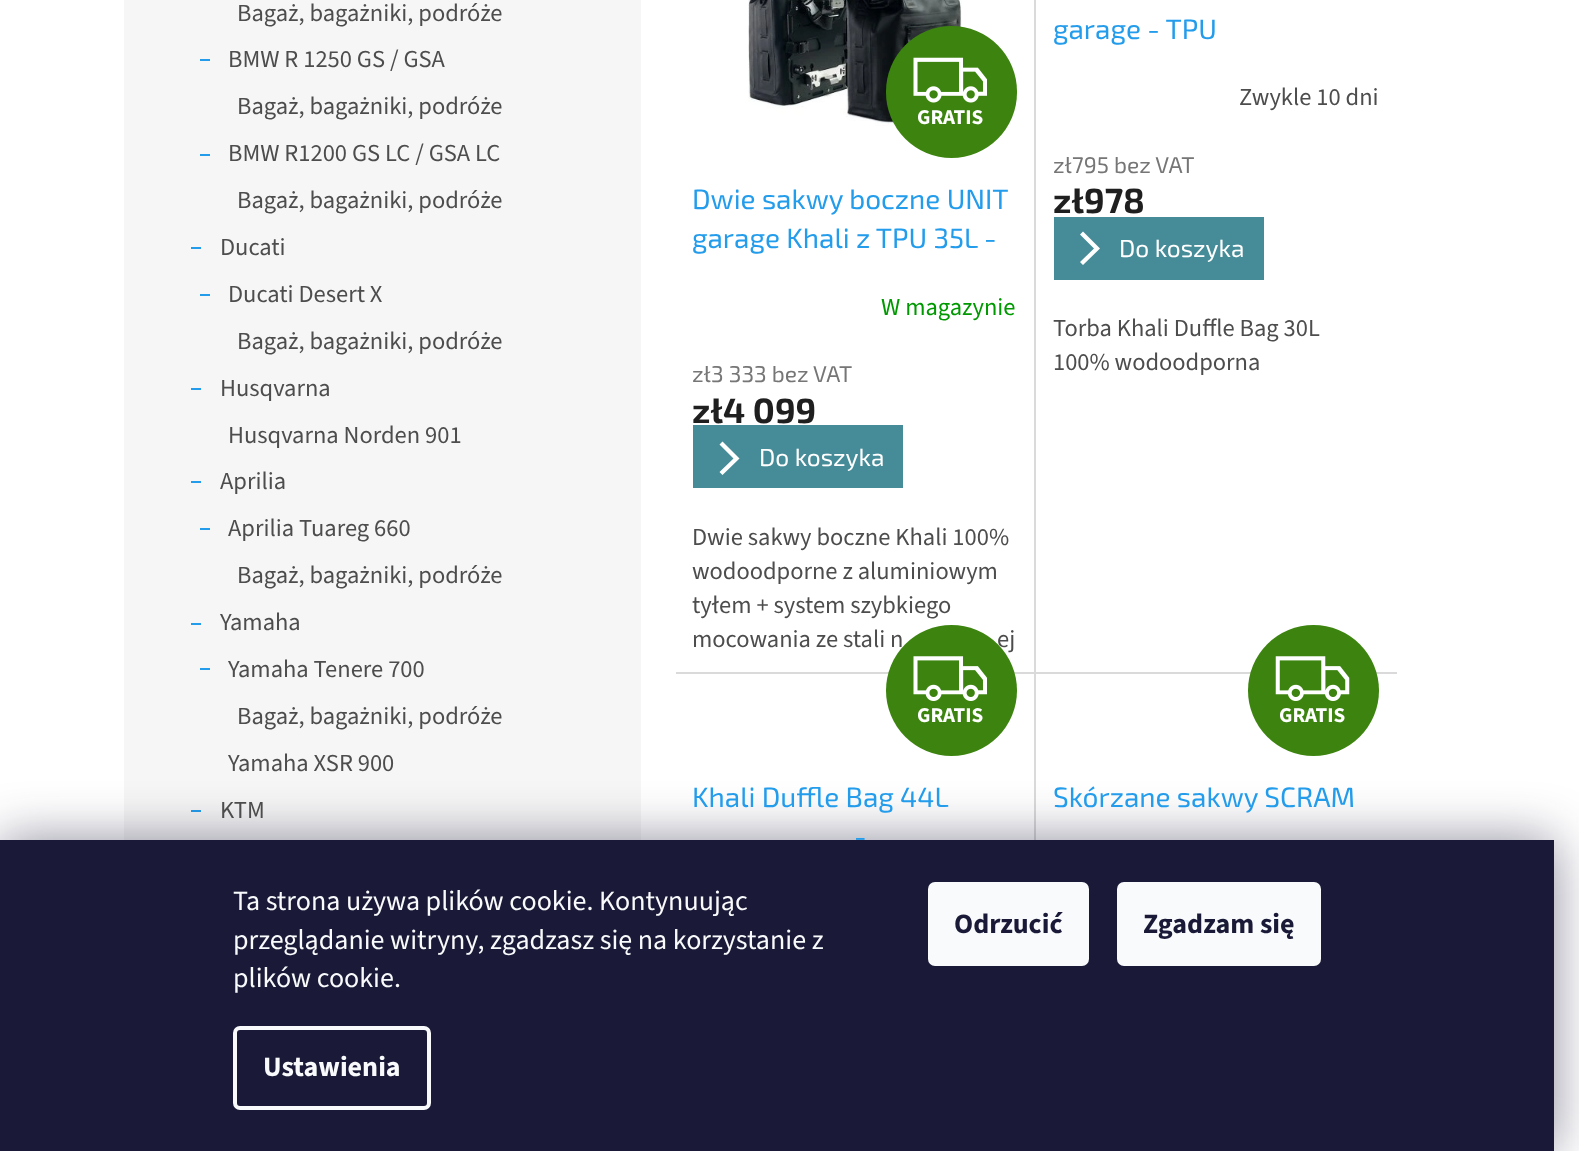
(async () => {
  const canvas = document.querySelector("canvas");
  canvas.width = 1579;
  canvas.height = 1151;
  const ctx = canvas.getContext("2d");
  ctx.miterLimit = 4;
  ctx.fontKerning = "normal";
  async function loadImage(src) {
    const img = new Image();
    img.src = src;
    await img.decode();
    return img;
  }
  let path;

  ctx.fillStyle = "#ffffff";
  ctx.fillRect(0, 0, 1579, 1151);
  for (const [x, y, w, h, color] of [
    [124, 0, 517, 840, "#f6f6f6"],
    [200, 59, 10, 2, "#239ceb"],
    [200, 154, 10, 2, "#239ceb"],
    [191, 247, 10, 2, "#239ceb"],
    [200, 294, 10, 2, "#239ceb"],
    [191, 388, 10, 2, "#239ceb"],
    [191, 481, 10, 2, "#239ceb"],
    [200, 528, 10, 2, "#239ceb"],
    [191, 623, 10, 2, "#239ceb"],
    [200, 668, 10, 2, "#239ceb"],
    [191, 810, 10, 2, "#239ceb"],
    [1034, 0, 2, 672, "#dadada"],
  ]) {
    ctx.fillStyle = color;
    ctx.fillRect(x, y, w, h);
  }
  ctx.drawImage(await loadImage("img/1.png"), 748, 0, 214, 126);
  ctx.fillStyle = "#3c840f";
  ctx.beginPath();
  ctx.roundRect(886, 26, 131, 132, 65.5);
  ctx.fill();
  ctx.drawImage(await loadImage("img/2.png"), 913, 57, 74, 46);
  ctx.fillStyle = "#468c98";
  ctx.fillRect(693, 425, 210, 63);
  ctx.fillStyle = "#ffffff";
  path = new Path2D("M722.5 475L719.5 472L733.5 458.5L719.5 444.5L722.5 441.5L739.5 458.5Z");
  ctx.fill(path);
  ctx.fillStyle = "#468c98";
  ctx.fillRect(1054, 217, 210, 63);
  ctx.fillStyle = "#ffffff";
  path = new Path2D("M1083 265L1080 262L1094 248.5L1080 234.5L1083 231.5L1100 248.5Z");
  ctx.fill(path);
  ctx.fillStyle = "#dadada";
  ctx.fillRect(676, 672, 721, 2);
  ctx.fillRect(1034, 672, 2, 168);
  ctx.fillStyle = "#3c840f";
  ctx.beginPath();
  ctx.arc(1313.5, 690.5, 65.5, 0, Math.PI * 2);
  ctx.fill();
  ctx.drawImage(await loadImage("img/4.png"), 1275, 656, 75, 45);
  ctx.fillStyle = "rgba(27, 25, 57, 0.5)";
  ctx.filter = "blur(26px)";
  ctx.beginPath();
  ctx.rect(0, 840, 1554, 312);
  ctx.fill();
  ctx.filter = "none";
  ctx.fillStyle = "#1a1937";
  ctx.fillRect(0, 840, 1554, 311);
  ctx.beginPath();
  ctx.roundRect(235, 1028, 194, 80, 5);
  ctx.strokeStyle = "#f8fafb";
  ctx.lineWidth = 4;
  ctx.stroke();
  ctx.fillStyle = "#f8fafb";
  ctx.beginPath();
  ctx.roundRect(928, 882, 161, 84, 7);
  ctx.fill();
  ctx.beginPath();
  ctx.roundRect(1117, 882, 204, 84, 7);
  ctx.fill();
  ctx.font = "24.5px 'Source Sans 3'";
  ctx.fillStyle = "#4d4d4d";
  for (const [text, x, y] of [
    ["Bagaż, bagażniki, podróże", 237, 21],
    ["BMW R 1250 GS / GSA", 228, 67],
    ["Bagaż, bagażniki, podróże", 237, 114],
    ["BMW R1200 GS LC / GSA LC", 228, 161],
    ["Bagaż, bagażniki, podróże", 237, 208],
    ["Ducati", 220, 255],
    ["Ducati Desert X", 228, 302],
    ["Bagaż, bagażniki, podróże", 237, 349],
    ["Husqvarna", 220, 396],
    ["Husqvarna Norden 901", 228, 443],
    ["Aprilia", 220, 489],
    ["Aprilia Tuareg 660", 228, 536],
    ["Bagaż, bagażniki, podróże", 237, 583],
    ["Yamaha", 220, 630],
    ["Yamaha Tenere 700", 228, 677],
    ["Bagaż, bagażniki, podróże", 237, 724],
    ["Yamaha XSR 900", 228, 771],
    ["KTM", 220, 818],
  ]) {
    ctx.fillText(text, x, y);
  }
  ctx.font = "bold 21px 'Source Sans 3'";
  ctx.fillStyle = "#ffffff";
  ctx.fillText("GRATIS", 917, 124);
  ctx.font = "28px 'Exo 2'";
  ctx.fillStyle = "#239ceb";
  ctx.fillText("Dwie sakwy boczne UNIT", 692, 209);
  ctx.fillText("garage Khali z TPU 35L -", 692, 248);
  ctx.font = "24.5px 'Source Sans 3'";
  ctx.fillStyle = "#009901";
  ctx.fillText("W magazynie", 881, 315);
  ctx.font = "22.75px 'Exo 2'";
  ctx.fillStyle = "#767676";
  ctx.fillText("zł3 333 bez VAT", 692, 382);
  ctx.font = "bold 35px 'Exo 2'";
  ctx.fillStyle = "#1f1f1f";
  ctx.fillText("zł4 099", 692, 423);
  ctx.font = "24.5px 'Exo 2'";
  ctx.fillStyle = "#ffffff";
  ctx.fillText("Do koszyka", 759, 466);
  ctx.font = "24.5px 'Source Sans 3'";
  ctx.fillStyle = "#4d4d4d";
  for (const [text, x, y] of [
    ["Dwie sakwy boczne Khali 100%", 692, 545],
    ["wodoodporne z aluminiowym", 692, 579],
    ["tyłem + system szybkiego", 692, 613],
    ["mocowania ze stali n", 692, 647],
    ["ej", 997, 647],
  ]) {
    ctx.fillText(text, x, y);
  }
  ctx.save();
  ctx.beginPath();
  ctx.rect(1054, 0, 325, 49);
  ctx.clip();
  ctx.font = "28px 'Exo 2'";
  ctx.fillStyle = "#239ceb";
  ctx.fillText("garage - TPU", 1053, 39);
  ctx.restore();
  ctx.fillText("Zwykle 10 dni", 1239, 105);
  ctx.font = "22.75px 'Exo 2'";
  ctx.fillStyle = "#767676";
  ctx.fillText("zł795 bez VAT", 1053, 173);
  ctx.font = "bold 35px 'Exo 2'";
  ctx.fillStyle = "#1f1f1f";
  ctx.fillText("zł978", 1053, 213);
  ctx.font = "24.5px 'Exo 2'";
  ctx.fillStyle = "#ffffff";
  ctx.fillText("Do koszyka", 1119, 257);
  ctx.font = "24.5px 'Source Sans 3'";
  ctx.fillStyle = "#4d4d4d";
  ctx.fillText("Torba Khali Duffle Bag 30L", 1053, 336);
  ctx.fillText("100% wodoodporna", 1053, 370);
  ctx.fillStyle = "#3c840f";
  ctx.beginPath();
  ctx.arc(951.5, 690.5, 65.5, 0, Math.PI * 2);
  ctx.fill();
  ctx.drawImage(await loadImage("img/3.png"), 913, 656, 74, 45);
  ctx.font = "bold 21px 'Source Sans 3'";
  ctx.fillStyle = "#ffffff";
  ctx.fillText("GRATIS", 917, 722);
  ctx.font = "28px 'Exo 2'";
  ctx.fillStyle = "#239ceb";
  ctx.fillText("Khali Duffle Bag 44L", 692, 807);
  ctx.fillText("-", 854, 846);
  ctx.font = "bold 21px 'Source Sans 3'";
  ctx.fillStyle = "#ffffff";
  ctx.fillText("GRATIS", 1279, 722);
  ctx.font = "28px 'Exo 2'";
  ctx.fillStyle = "#239ceb";
  ctx.fillText("Skórzane sakwy SCRAM", 1053, 807);
  ctx.font = "28px 'Source Sans 3'";
  ctx.fillStyle = "#f8fafb";
  for (const [text, x, y] of [
    ["Ta strona używa plików cookie. Kontynuując", 233, 910],
    ["przeglądanie witryny, zgadzasz się na korzystanie z", 233, 949],
    ["plików cookie.", 233, 987],
  ]) {
    ctx.fillText(text, x, y);
  }
  ctx.font = "bold 28px 'Source Sans 3'";
  ctx.fillText("Ustawienia", 263, 1076);
  ctx.fillStyle = "#1a1937";
  ctx.fillText("Odrzucić", 954, 933);
  ctx.fillText("Zgadzam się", 1143, 933);
})();
